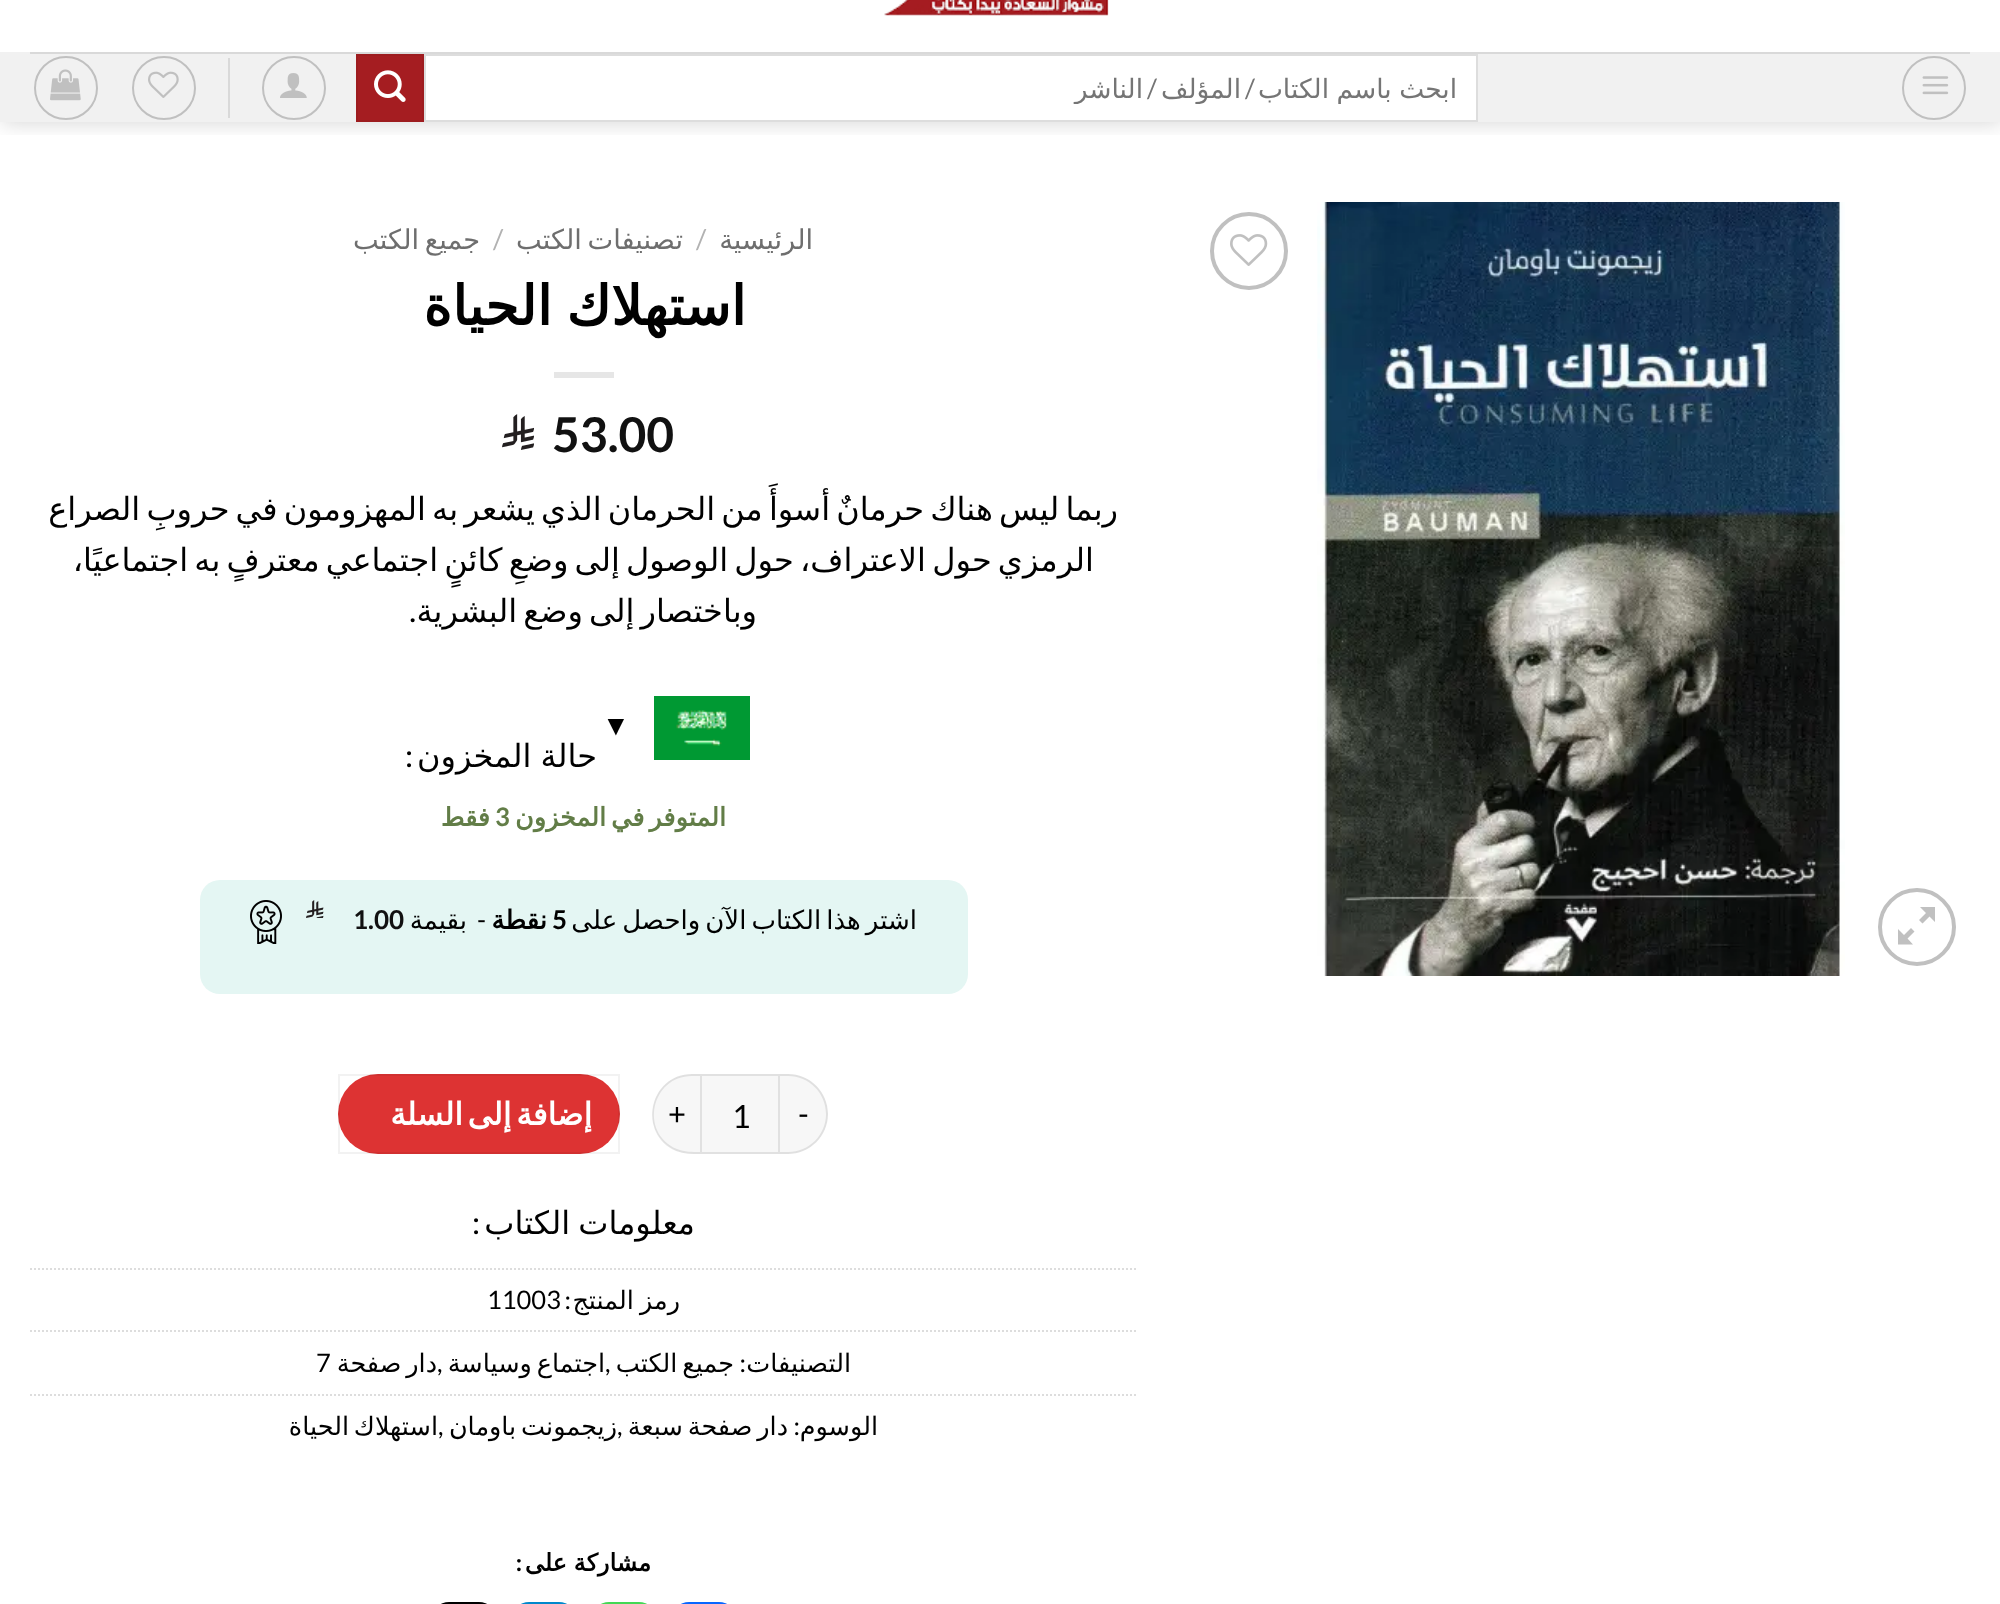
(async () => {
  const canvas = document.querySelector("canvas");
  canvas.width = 2000;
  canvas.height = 1604;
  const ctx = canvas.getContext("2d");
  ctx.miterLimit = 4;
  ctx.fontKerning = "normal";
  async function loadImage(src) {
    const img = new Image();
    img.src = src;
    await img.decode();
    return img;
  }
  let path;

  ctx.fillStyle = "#ffffff";
  ctx.fillRect(0, 0, 2000, 1604);
  ctx.save();
  ctx.beginPath();
  ctx.rect(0, 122, 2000, 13);
  ctx.clip();
  ctx.fillStyle = "rgba(0, 0, 0, 0.15)";
  ctx.filter = "blur(10px)";
  ctx.beginPath();
  ctx.rect(2, -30, 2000, 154);
  ctx.fill();
  ctx.filter = "none";
  ctx.restore();
  ctx.drawImage(await loadImage("img/1.png"), 884, 0, 225, 16);
  ctx.fillStyle = "#f1f1f1";
  ctx.fillRect(0, 52, 2000, 70);
  ctx.fillStyle = "#d9d9d9";
  ctx.fillRect(30, 52, 1940, 2);
  ctx.beginPath();
  ctx.arc(1934, 88, 31, 0, Math.PI * 2);
  ctx.strokeStyle = "#c0c0c0";
  ctx.lineWidth = 2;
  ctx.stroke();
  ctx.drawImage(await loadImage("img/2.png"), 1922, 76, 27, 19);
  ctx.fillStyle = "#ffffff";
  ctx.beginPath();
  ctx.rect(425, 55, 1052, 66);
  ctx.fill();
  ctx.strokeStyle = "#dddddd";
  ctx.stroke();
  ctx.fillStyle = "#a51d21";
  ctx.beginPath();
  ctx.rect(357, 55, 66, 66);
  ctx.fill();
  ctx.strokeStyle = "#9d1c1f";
  ctx.stroke();
  ctx.drawImage(await loadImage("img/3.png"), 374, 70, 32, 32);
  ctx.beginPath();
  ctx.arc(294, 88, 31, 0, Math.PI * 2);
  ctx.strokeStyle = "#c0c0c0";
  ctx.stroke();
  ctx.drawImage(await loadImage("img/4.png"), 280, 73, 27, 25);
  ctx.fillStyle = "#d9d9d9";
  ctx.fillRect(228, 58, 2, 60);
  ctx.beginPath();
  ctx.arc(164, 88, 31, 0, Math.PI * 2);
  ctx.stroke();
  ctx.drawImage(await loadImage("img/5.png"), 148, 71, 31, 27);
  ctx.beginPath();
  ctx.arc(66, 88, 31, 0, Math.PI * 2);
  ctx.stroke();
  ctx.drawImage(await loadImage("img/6.png"), 50, 69, 31, 32);
  ctx.drawImage(await loadImage("img/7.png"), 1317, 202, 528, 774);
  ctx.beginPath();
  ctx.arc(1249, 251, 37, 0, Math.PI * 2);
  ctx.lineWidth = 4;
  ctx.stroke();
  ctx.drawImage(await loadImage("img/8.png"), 1230, 234, 38, 32);
  ctx.beginPath();
  ctx.arc(1917, 927, 37, 0, Math.PI * 2);
  ctx.stroke();
  ctx.fillStyle = "#c0c0c0";
  path = new Path2D("M1935 907V922L1929.5 916.5L1922.5 923.5L1919 920L1926 913L1920 907ZM1914.5 931.5L1907.5 938.5L1913 944.5H1898V929L1904 935L1911 928Z");
  ctx.fill(path);
  ctx.fillStyle = "#e6e6e6";
  ctx.fillRect(554, 372, 60, 6);
  ctx.drawImage(await loadImage("img/9.png"), 502, 414, 32, 36);
  ctx.drawImage(await loadImage("img/10.png"), 654, 696, 96, 64);
  ctx.fillStyle = "#e4f6f3";
  ctx.beginPath();
  ctx.roundRect(200, 880, 768, 114, 20);
  ctx.fill();
  ctx.drawImage(await loadImage("img/11.png"), 306, 900, 18, 18);
  ctx.drawImage(await loadImage("img/12.png"), 250, 900, 32, 44);
  ctx.fillStyle = "#f7f7f7";
  ctx.beginPath();
  ctx.roundRect(780, 1074, 48, 80, [0, 40, 40, 0]);
  ctx.fill();
  ctx.fillStyle = "rgba(0, 0, 0, 0.09)";
  path = new Path2D("M780 1074H788C810 1074 828 1092 828 1114C828 1136 810 1154 788 1154H780ZM780 1076H788C809 1076 826 1093 826 1114C826 1135 809 1152 788 1152H780Z");
  ctx.fill(path, "evenodd");
  ctx.fillStyle = "#f7f7f7";
  ctx.beginPath();
  ctx.rect(701, 1075, 78, 78);
  ctx.fill();
  ctx.strokeStyle = "#e1e1e1";
  ctx.lineWidth = 2;
  ctx.stroke();
  ctx.beginPath();
  ctx.roundRect(652, 1074, 48, 80, [40, 0, 0, 40]);
  ctx.fill();
  ctx.fillStyle = "rgba(0, 0, 0, 0.09)";
  path = new Path2D("M692 1074H700V1154C692 1154 684 1154 676 1151C637 1134 649 1074 692 1074ZM692 1076H700V1152C692 1152 685 1152 677 1149C639 1133 651 1076 692 1076Z");
  ctx.fill(path, "evenodd");
  ctx.fillStyle = "#dd3333";
  ctx.beginPath();
  ctx.roundRect(338, 1074, 282, 80, 40);
  ctx.fill();
  ctx.strokeStyle = "rgba(0, 0, 0, 0.05)";
  ctx.strokeRect(339, 1075, 280, 78);
  path = new Path2D("M30 1269H1136");
  ctx.strokeStyle = "#dddddd";
  ctx.setLineDash([2, 2]);
  ctx.stroke(path);
  path = new Path2D("M30 1331H1136");
  ctx.stroke(path);
  path = new Path2D("M30 1395H1136");
  ctx.stroke(path);
  ctx.fillStyle = "#0866ff";
  ctx.beginPath();
  ctx.roundRect(672, 1602, 64, 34, 32);
  ctx.fill();
  ctx.fillStyle = "#43d854";
  ctx.beginPath();
  ctx.roundRect(592, 1602, 64, 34, 32);
  ctx.fill();
  ctx.fillStyle = "#0088cc";
  ctx.beginPath();
  ctx.roundRect(512, 1602, 64, 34, 32);
  ctx.fill();
  ctx.fillStyle = "#000000";
  ctx.beginPath();
  ctx.roundRect(432, 1602, 64, 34, 32);
  ctx.fill();
  ctx.save();
  ctx.beginPath();
  ctx.rect(454, 72, 1002, 32);
  ctx.clip();
  ctx.wordSpacing = "-1px";
  ctx.direction = "rtl";
  ctx.font = "26.5px DejaVu Sans";
  ctx.fillStyle = "#757575";
  ctx.fillText("ابحث باسم الكتاب", 1457, 98);
  ctx.restore();
  ctx.direction = "rtl";
  ctx.font = "26.5px Lato";
  ctx.fillStyle = "#757575";
  ctx.fillText("/", 1255, 98);
  ctx.save();
  ctx.beginPath();
  ctx.rect(454, 72, 1002, 32);
  ctx.clip();
  ctx.font = "26.5px DejaVu Sans";
  ctx.fillText("المؤلف", 1241, 98);
  ctx.restore();
  ctx.fillText("/", 1157, 98);
  ctx.save();
  ctx.beginPath();
  ctx.rect(454, 72, 1002, 32);
  ctx.clip();
  ctx.font = "26.5px DejaVu Sans";
  ctx.fillText("الناشر", 1143, 98);
  ctx.restore();
  ctx.font = "27.25px DejaVu Sans";
  ctx.fillStyle = "#6e6e6e";
  ctx.fillText("الرئيسية", 813, 249);
  ctx.direction = "ltr";
  ctx.font = "27.25px Lato";
  ctx.fillStyle = "#b2b2b2";
  ctx.fillText("/", 696, 249);
  ctx.wordSpacing = "-3px";
  ctx.direction = "rtl";
  ctx.font = "27.25px DejaVu Sans";
  ctx.fillStyle = "#6e6e6e";
  ctx.fillText("تصنيفات الكتب", 683, 249);
  ctx.wordSpacing = "0px";
  ctx.direction = "ltr";
  ctx.font = "27.25px Lato";
  ctx.fillStyle = "#b2b2b2";
  ctx.fillText("/", 493, 249);
  ctx.wordSpacing = "-3px";
  ctx.direction = "rtl";
  ctx.font = "27.25px DejaVu Sans";
  ctx.fillStyle = "#6e6e6e";
  ctx.fillText("جميع الكتب", 480, 249);
  ctx.font = "bold 54.5px DejaVu Sans";
  ctx.fillStyle = "#000000";
  ctx.fillText("استهلاك الحياة", 746, 325);
  ctx.wordSpacing = "0px";
  ctx.direction = "ltr";
  ctx.font = "bold 48px Lato";
  ctx.fillStyle = "#111111";
  ctx.fillText("53.00", 552, 452);
  ctx.wordSpacing = "-4px";
  ctx.direction = "rtl";
  ctx.font = "32px DejaVu Sans";
  ctx.fillStyle = "#000000";
  for (const [text, x, y] of [
    ["ربما ليس هناك حرمانٌ أسوأَ من الحرمان الذي يشعر به المهزومون في حروبِ الصراع", 1118, 520],
    ["الرمزي حول الاعتراف، حول الوصول إلى وضعِ كائنٍ اجتماعي معترفٍ به اجتماعيًا،", 1094, 571],
    ["وباختصار إلى وضع البشرية", 757, 622],
  ]) {
    ctx.fillText(text, x, y);
  }
  ctx.wordSpacing = "0px";
  ctx.font = "32px Lato";
  ctx.fillText(".", 416, 622);
  ctx.direction = "ltr";
  ctx.font = "28px Liberation Sans";
  ctx.fillText("▼", 602, 735);
  ctx.wordSpacing = "-1px";
  ctx.direction = "rtl";
  ctx.font = "32px DejaVu Sans";
  ctx.fillText("حالة المخزون", 597, 767);
  ctx.wordSpacing = "0px";
  ctx.font = "32px Lato";
  ctx.fillText(":", 413, 767);
  ctx.wordSpacing = "-3.25px";
  ctx.font = "bold 25.5px DejaVu Sans";
  ctx.fillStyle = "#627d47";
  ctx.fillText("المتوفر في المخزون", 726, 826);
  ctx.wordSpacing = "0px";
  ctx.direction = "ltr";
  ctx.font = "bold 25.5px Lato";
  ctx.fillText("3", 495, 826);
  ctx.direction = "rtl";
  ctx.font = "bold 25.5px DejaVu Sans";
  ctx.fillText("فقط", 490, 826);
  ctx.wordSpacing = "-3.25px";
  ctx.font = "26px DejaVu Sans";
  ctx.fillStyle = "#000000";
  ctx.fillText("اشتر هذا الكتاب الآن واحصل على", 917, 929);
  ctx.wordSpacing = "0px";
  ctx.direction = "ltr";
  ctx.font = "bold 26px Lato";
  ctx.fillText("5", 552, 929);
  ctx.direction = "rtl";
  ctx.font = "bold 26px DejaVu Sans";
  ctx.fillText("نقطة", 547, 929);
  ctx.font = "26px Lato";
  ctx.fillText("-", 486, 929);
  ctx.font = "26px DejaVu Sans";
  ctx.fillText("بقيمة", 467, 929);
  ctx.direction = "ltr";
  ctx.font = "bold 26px Lato";
  ctx.fillStyle = "#111111";
  ctx.fillText("1.00", 353, 929);
  ctx.letterSpacing = "0.9px";
  ctx.font = "31px Lato";
  ctx.fillStyle = "#000000";
  ctx.fillText("-", 798, 1125);
  ctx.letterSpacing = "0px";
  ctx.font = "32px Lato";
  ctx.fillText("1", 732, 1128);
  ctx.letterSpacing = "0.9px";
  ctx.font = "31px Lato";
  ctx.fillText("+", 668, 1125);
  ctx.wordSpacing = "-6px";
  ctx.direction = "rtl";
  ctx.font = "bold 31px DejaVu Sans";
  ctx.fillStyle = "#ffffff";
  ctx.fillText("إضافة إلى السلة", 592, 1125);
  ctx.letterSpacing = "0px";
  ctx.wordSpacing = "-2px";
  ctx.font = "32px DejaVu Sans";
  ctx.fillStyle = "#000000";
  ctx.fillText("معلومات الكتاب", 695, 1234);
  ctx.wordSpacing = "0px";
  ctx.font = "32px Lato";
  ctx.fillText(":", 480, 1234);
  ctx.wordSpacing = "-2px";
  ctx.font = "25.5px DejaVu Sans";
  ctx.fillText("رمز المنتج", 680, 1309);
  ctx.wordSpacing = "0px";
  ctx.font = "25.5px Lato";
  ctx.fillText(":", 571, 1309);
  ctx.direction = "ltr";
  ctx.fillText("11003", 487, 1309);
  ctx.direction = "rtl";
  ctx.font = "25.5px DejaVu Sans";
  ctx.fillText("التصنيفات", 851, 1372);
  ctx.font = "25.5px Lato";
  ctx.fillText(":", 746, 1372);
  ctx.wordSpacing = "-3.25px";
  ctx.font = "25.5px DejaVu Sans";
  ctx.fillText("جميع الكتب", 734, 1372);
  ctx.fillText("اجتماع وسياسة", 605, 1372);
  ctx.wordSpacing = "0px";
  ctx.direction = "ltr";
  ctx.font = "25.5px Lato";
  for (const [text, x, y] of [
    ["7", 316, 1372],
    [",", 605, 1372],
    [",", 437, 1372],
  ]) {
    ctx.fillText(text, x, y);
  }
  ctx.wordSpacing = "-3.25px";
  ctx.direction = "rtl";
  ctx.font = "25.5px DejaVu Sans";
  ctx.fillText("دار صفحة", 437, 1372);
  ctx.wordSpacing = "0px";
  ctx.fillText("الوسوم", 878, 1435);
  ctx.font = "25.5px Lato";
  ctx.fillText(":", 800, 1435);
  ctx.wordSpacing = "-3.25px";
  ctx.font = "25.5px DejaVu Sans";
  ctx.fillText("دار صفحة سبعة", 788, 1435);
  ctx.wordSpacing = "0px";
  ctx.direction = "ltr";
  ctx.font = "25.5px Lato";
  ctx.fillText(",", 617, 1435);
  ctx.wordSpacing = "-3.25px";
  ctx.direction = "rtl";
  ctx.font = "25.5px DejaVu Sans";
  ctx.fillText("زيجمونت باومان", 617, 1435);
  ctx.wordSpacing = "0px";
  ctx.direction = "ltr";
  ctx.font = "25.5px Lato";
  ctx.fillText(",", 438, 1435);
  ctx.wordSpacing = "-3.25px";
  ctx.direction = "rtl";
  ctx.font = "25.5px DejaVu Sans";
  ctx.fillText("استهلاك الحياة", 438, 1435);
  ctx.wordSpacing = "-1px";
  ctx.font = "bold 24px DejaVu Sans";
  ctx.fillText("مشاركة على", 651, 1571);
  ctx.wordSpacing = "0px";
  ctx.font = "bold 24px Lato";
  ctx.fillText(":", 522, 1571);
})();
